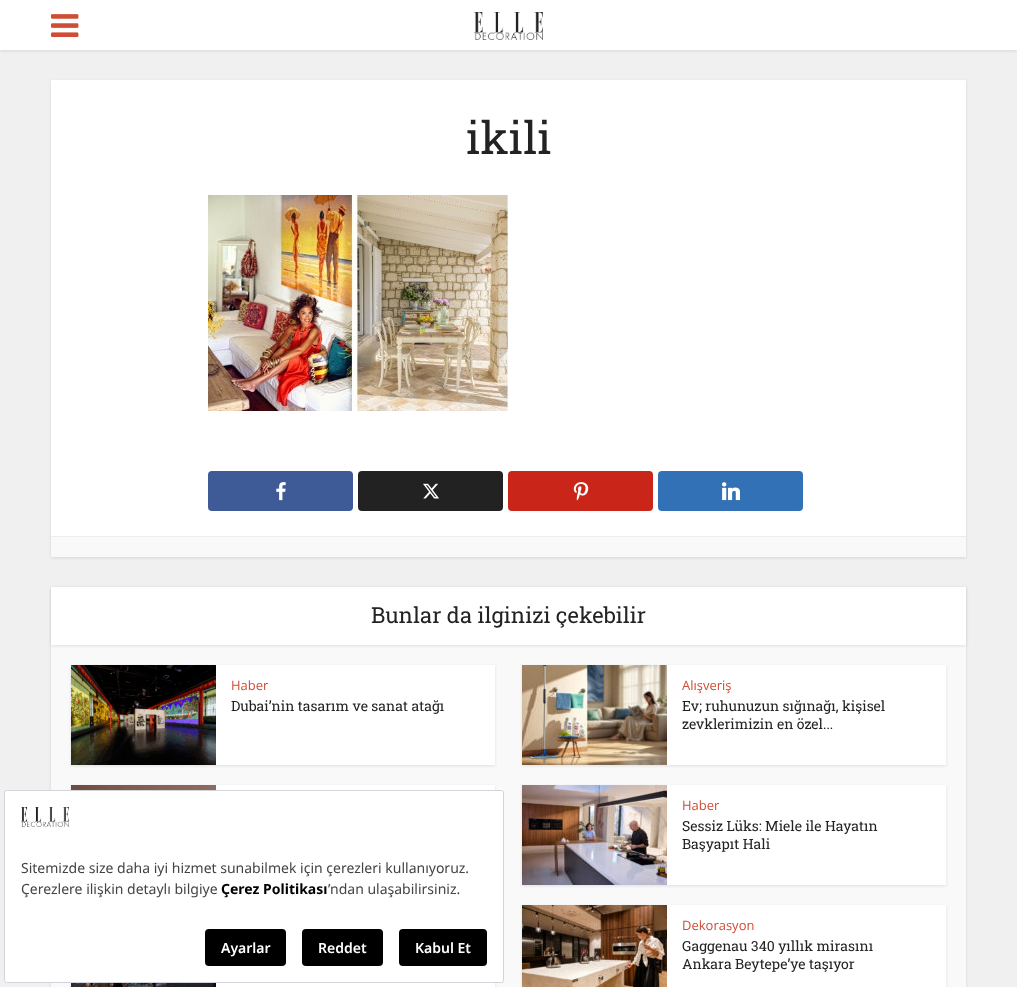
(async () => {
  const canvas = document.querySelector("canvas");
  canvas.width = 1017;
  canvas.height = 987;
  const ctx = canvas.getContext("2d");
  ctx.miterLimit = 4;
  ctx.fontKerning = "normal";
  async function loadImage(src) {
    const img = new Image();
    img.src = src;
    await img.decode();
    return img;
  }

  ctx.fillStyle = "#f0f0f0";
  ctx.fillRect(0, 0, 1017, 987);
  ctx.fillStyle = "rgba(0, 0, 0, 0.1)";
  ctx.filter = "blur(1.5px)";
  ctx.beginPath();
  ctx.rect(0, 1, 1017, 50);
  ctx.fill();
  ctx.filter = "none";
  ctx.fillStyle = "#ffffff";
  ctx.fillRect(0, 0, 1017, 50);
  ctx.drawImage(await loadImage("img/1.png"), 51, 14, 28, 23);
  ctx.drawImage(await loadImage("img/2.png"), 474, 12, 69, 28);
  ctx.fillStyle = "rgba(0, 0, 0, 0.1)";
  ctx.filter = "blur(1.5px)";
  ctx.beginPath();
  ctx.rect(51, 81, 915, 477);
  ctx.fill();
  ctx.filter = "none";
  ctx.fillStyle = "#ffffff";
  ctx.fillRect(51, 80, 915, 456);
  ctx.drawImage(await loadImage("img/3.png"), 208, 195, 300, 216);
  ctx.fillStyle = "#3e5b98";
  ctx.beginPath();
  ctx.roundRect(208, 471, 145, 40, 4);
  ctx.fill();
  ctx.drawImage(await loadImage("img/4.png"), 276, 482, 10, 19);
  ctx.fillStyle = "#222222";
  ctx.beginPath();
  ctx.roundRect(358, 471, 145, 40, 4);
  ctx.fill();
  ctx.drawImage(await loadImage("img/5.png"), 423, 483, 16, 16);
  ctx.fillStyle = "#c92619";
  ctx.beginPath();
  ctx.roundRect(508, 471, 145, 40, 4);
  ctx.fill();
  ctx.drawImage(await loadImage("img/6.png"), 573, 482, 16, 19);
  ctx.fillStyle = "#3371b7";
  ctx.beginPath();
  ctx.roundRect(658, 471, 145, 40, 4);
  ctx.fill();
  ctx.drawImage(await loadImage("img/7.png"), 722, 482, 18, 19);
  ctx.fillStyle = "#f9f9f9";
  ctx.fillRect(51, 537, 915, 20);
  ctx.fillStyle = "#ededed";
  ctx.fillRect(51, 536, 915, 1);
  ctx.fillStyle = "rgba(0, 0, 0, 0.1)";
  ctx.filter = "blur(1.5px)";
  ctx.beginPath();
  ctx.rect(51, 588, 915, 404);
  ctx.fill();
  ctx.filter = "none";
  ctx.fillStyle = "#f9f9f9";
  ctx.fillRect(51, 645, 915, 342);
  ctx.fillStyle = "rgba(0, 0, 0, 0.1)";
  ctx.filter = "blur(1.5px)";
  ctx.beginPath();
  ctx.rect(51, 588, 915, 58);
  ctx.fill();
  ctx.filter = "none";
  ctx.fillStyle = "#ffffff";
  ctx.fillRect(51, 587, 915, 58);
  ctx.fillStyle = "rgba(0, 0, 0, 0.1)";
  ctx.filter = "blur(1.5px)";
  ctx.beginPath();
  ctx.rect(71, 666, 424, 100);
  ctx.fill();
  ctx.filter = "none";
  ctx.fillStyle = "#ffffff";
  ctx.fillRect(216, 665, 279, 100);
  ctx.drawImage(await loadImage("img/8.png"), 71, 665, 145, 100);
  ctx.fillStyle = "rgba(0, 0, 0, 0.1)";
  ctx.filter = "blur(1.5px)";
  ctx.beginPath();
  ctx.rect(522, 666, 424, 100);
  ctx.fill();
  ctx.filter = "none";
  ctx.fillStyle = "#ffffff";
  ctx.fillRect(667, 665, 279, 100);
  ctx.drawImage(await loadImage("img/9.png"), 522, 665, 145, 100);
  ctx.fillStyle = "rgba(0, 0, 0, 0.1)";
  ctx.filter = "blur(1.5px)";
  ctx.beginPath();
  ctx.rect(71, 786, 424, 100);
  ctx.fill();
  ctx.filter = "none";
  ctx.fillStyle = "#ffffff";
  ctx.fillRect(216, 785, 279, 5);
  ctx.drawImage(await loadImage("img/10.png"), 71, 785, 145, 5);
  ctx.fillStyle = "rgba(0, 0, 0, 0.1)";
  ctx.filter = "blur(1.5px)";
  ctx.beginPath();
  ctx.rect(522, 786, 424, 100);
  ctx.fill();
  ctx.filter = "none";
  ctx.fillStyle = "#ffffff";
  ctx.fillRect(667, 785, 279, 100);
  ctx.drawImage(await loadImage("img/11.png"), 522, 785, 145, 100);
  ctx.fillStyle = "rgba(0, 0, 0, 0.1)";
  ctx.filter = "blur(1.5px)";
  ctx.beginPath();
  ctx.rect(71, 906, 424, 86);
  ctx.fill();
  ctx.filter = "none";
  ctx.fillStyle = "#ffffff";
  ctx.fillRect(216, 983, 279, 4);
  ctx.drawImage(await loadImage("img/12.png"), 71, 983, 145, 4);
  ctx.fillStyle = "rgba(0, 0, 0, 0.1)";
  ctx.filter = "blur(1.5px)";
  ctx.beginPath();
  ctx.rect(522, 906, 424, 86);
  ctx.fill();
  ctx.filter = "none";
  ctx.fillStyle = "#ffffff";
  ctx.fillRect(667, 905, 279, 82);
  ctx.drawImage(await loadImage("img/13.png"), 522, 905, 145, 82);
  ctx.beginPath();
  ctx.roundRect(4.5, 790.5, 499, 192, 2);
  ctx.fill();
  ctx.strokeStyle = "#d1d5db";
  ctx.stroke();
  ctx.drawImage(await loadImage("img/14.png"), 21, 807, 48, 20);
  ctx.fillStyle = "#000000";
  ctx.beginPath();
  ctx.roundRect(205, 929, 81, 37, 4);
  ctx.fill();
  ctx.beginPath();
  ctx.roundRect(302, 929, 81, 37, 4);
  ctx.fill();
  ctx.beginPath();
  ctx.roundRect(399, 929, 88, 37, 4);
  ctx.fill();
  ctx.font = "45px Roboto Slab";
  ctx.fillStyle = "#232323";
  ctx.fillText("ikili", 466, 154);
  ctx.font = "22px Roboto Slab";
  ctx.fillText("Bunlar da ilginizi çekebilir", 371, 623);
  ctx.font = "13px Open Sans";
  ctx.fillStyle = "#cf4d35";
  ctx.fillText("Haber", 231, 690);
  ctx.font = "14px Roboto Slab";
  ctx.fillStyle = "#232323";
  ctx.fillText("Dubai’nin tasarım ve sanat atağı", 231, 711);
  ctx.font = "13px Open Sans";
  ctx.fillStyle = "#cf4d35";
  ctx.fillText("Alışveriş", 682, 690);
  ctx.font = "14px Roboto Slab";
  ctx.fillStyle = "#232323";
  ctx.fillText("Ev; ruhunuzun sığınağı, kişisel", 682, 711);
  ctx.fillText("zevklerimizin en özel...", 682, 729);
  ctx.font = "13px Open Sans";
  ctx.fillStyle = "#cf4d35";
  ctx.fillText("Haber", 682, 810);
  ctx.font = "14px Roboto Slab";
  ctx.fillStyle = "#232323";
  ctx.fillText("Sessiz Lüks: Miele ile Hayatın", 682, 831);
  ctx.fillText("Başyapıt Hali", 682, 849);
  ctx.font = "13px Open Sans";
  ctx.fillStyle = "#cf4d35";
  ctx.fillText("Dekorasyon", 682, 930);
  ctx.font = "14px Roboto Slab";
  ctx.fillStyle = "#232323";
  ctx.fillText("Gaggenau 340 yıllık mirasını", 682, 951);
  ctx.fillText("Ankara Beytepe’ye taşıyor", 682, 969);
  ctx.font = "14px Noto Sans";
  ctx.fillStyle = "#444444";
  ctx.fillText("Sitemizde size daha iyi hizmet sunabilmek için çerezleri kullanıyoruz.", 21, 873);
  ctx.fillText("Çerezlere ilişkin detaylı bilgiye", 21, 894);
  ctx.font = "bold 14px Noto Sans";
  ctx.fillStyle = "#000000";
  ctx.fillText("Çerez Politikası", 221, 894);
  ctx.font = "14px Noto Sans";
  ctx.fillStyle = "#444444";
  ctx.fillText("’ndan ulaşabilirsiniz.", 328, 894);
  ctx.font = "600 14px Noto Sans";
  ctx.fillStyle = "#ffffff";
  for (const [text, x, y] of [
    ["Ayarlar", 221, 953],
    ["Reddet", 318, 953],
    ["Kabul Et", 415, 953],
  ]) {
    ctx.fillText(text, x, y);
  }
})();
